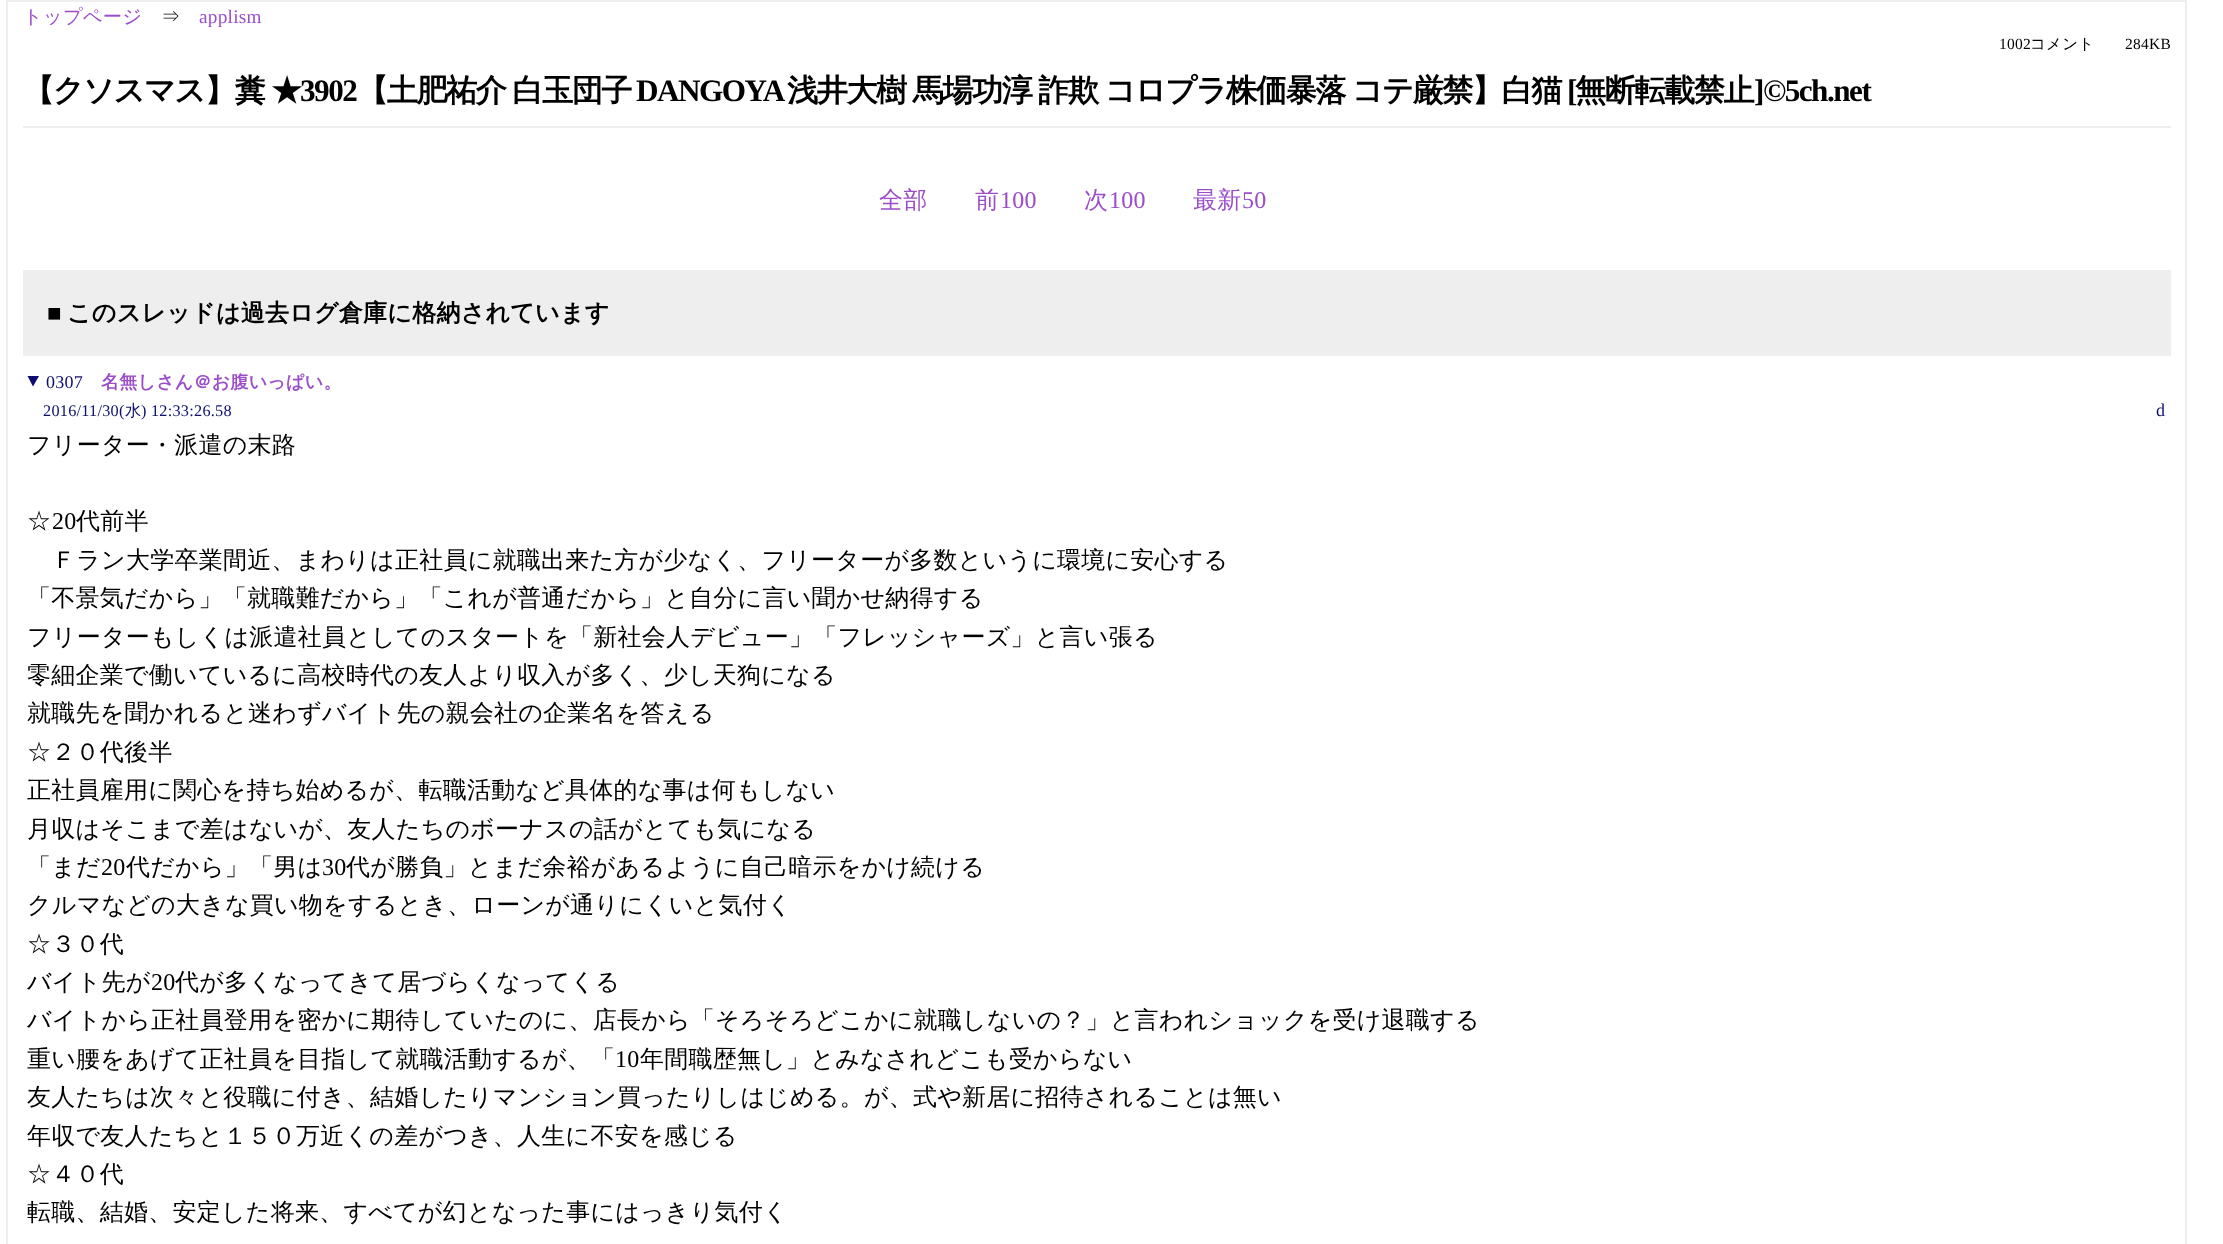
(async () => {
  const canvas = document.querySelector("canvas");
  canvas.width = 2223;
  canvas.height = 1244;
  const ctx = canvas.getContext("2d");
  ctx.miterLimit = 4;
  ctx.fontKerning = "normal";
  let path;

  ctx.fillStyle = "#ffffff";
  ctx.fillRect(0, 0, 2223, 1244);
  ctx.strokeStyle = "#eeeeee";
  ctx.lineWidth = 2;
  ctx.strokeRect(7, 1, 2179, 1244);
  ctx.fillStyle = "#eeeeee";
  ctx.fillRect(23, 126, 2148, 2);
  ctx.fillRect(23, 270, 2148, 86);
  ctx.fillStyle = "#0e0e6e";
  path = new Path2D("M27.5 376H39L33 386.5Z");
  ctx.fill(path);
  ctx.letterSpacing = "0.25px";
  ctx.font = "500 19.25px WenQuanYi Zen Hei";
  ctx.fillStyle = "#9b4dca";
  ctx.fillText("トップページ", 23, 23);
  ctx.fillStyle = "#000000";
  ctx.fillText("⇒", 161, 23);
  ctx.font = "19.25px Liberation Serif";
  ctx.fillStyle = "#9b4dca";
  ctx.fillText("applism", 199, 23);
  ctx.font = "15.5px Liberation Serif";
  ctx.fillStyle = "#000000";
  ctx.fillText("1002", 1999, 49);
  ctx.font = "500 15.5px WenQuanYi Zen Hei";
  ctx.fillText("コメント", 2030, 49);
  ctx.font = "15.5px Liberation Serif";
  ctx.fillText("284KB", 2125, 49);
  ctx.letterSpacing = "-1.5px";
  ctx.wordSpacing = "-1px";
  ctx.font = "bold 31.2px WenQuanYi Zen Hei";
  ctx.fillText("【クソスマス】糞 ★", 23, 101);
  ctx.wordSpacing = "0px";
  ctx.font = "bold 31.2px Liberation Serif";
  ctx.fillText("3902", 300, 101);
  ctx.wordSpacing = "-1px";
  ctx.font = "bold 31.2px WenQuanYi Zen Hei";
  ctx.fillText("【土肥祐介 白玉団子", 357, 101);
  ctx.wordSpacing = "0px";
  ctx.font = "bold 31.2px Liberation Serif";
  ctx.fillText("DANGOYA", 636, 101);
  ctx.wordSpacing = "-1px";
  ctx.font = "bold 31.2px WenQuanYi Zen Hei";
  ctx.fillText("浅井大樹 馬場功淳 詐欺 コロプラ株価暴落 コテ厳禁】白猫", 787, 101);
  ctx.wordSpacing = "0px";
  ctx.font = "bold 31.2px Liberation Serif";
  ctx.fillText("[", 1567, 101);
  ctx.font = "bold 31.2px WenQuanYi Zen Hei";
  ctx.fillText("無断転載禁止", 1575, 101);
  ctx.font = "bold 31.2px Liberation Serif";
  ctx.fillText("]©5ch.net", 1754, 101);
  ctx.letterSpacing = "0.25px";
  ctx.font = "500 24px WenQuanYi Zen Hei";
  ctx.fillStyle = "#9b4dca";
  ctx.fillText("全部", 879, 208);
  ctx.fillText("前", 975, 208);
  ctx.font = "24px Liberation Serif";
  ctx.fillText("100", 1000, 208);
  ctx.font = "500 24px WenQuanYi Zen Hei";
  ctx.fillText("次", 1084, 208);
  ctx.font = "24px Liberation Serif";
  ctx.fillText("100", 1109, 208);
  ctx.font = "500 24px WenQuanYi Zen Hei";
  ctx.fillText("最新", 1193, 208);
  ctx.font = "24px Liberation Serif";
  ctx.fillText("50", 1242, 208);
  ctx.font = "bold 24px Liberation Serif";
  ctx.fillStyle = "#000000";
  ctx.fillText("■", 47, 321);
  ctx.font = "bold 24px WenQuanYi Zen Hei";
  ctx.fillText("このスレッドは過去ログ倉庫に格納されています", 67, 321);
  ctx.font = "18px Liberation Serif";
  ctx.fillStyle = "#0e0e6e";
  ctx.fillText("0307", 46, 388);
  ctx.font = "bold 18px WenQuanYi Zen Hei";
  ctx.fillStyle = "#9b4dca";
  ctx.fillText("名無しさん＠お腹いっぱい。", 101, 388);
  ctx.font = "16.25px Liberation Serif";
  ctx.fillStyle = "#0e0e6e";
  ctx.fillText("2016/11/30(", 43, 416);
  ctx.font = "500 16.25px WenQuanYi Zen Hei";
  ctx.fillText("水", 125, 416);
  ctx.font = "16.25px Liberation Serif";
  ctx.fillText(") 12:33:26.58", 141, 416);
  ctx.font = "18px Liberation Serif";
  ctx.fillText("d", 2156, 416);
  ctx.font = "500 24px WenQuanYi Zen Hei";
  ctx.fillStyle = "#000000";
  ctx.fillText("フリーター・派遣の末路", 27, 453);
  ctx.fillText("☆", 27, 529);
  ctx.font = "24px Liberation Serif";
  ctx.fillText("20", 52, 529);
  ctx.font = "500 24px WenQuanYi Zen Hei";
  for (const [text, x, y] of [
    ["代前半", 76, 529],
    ["Ｆラン大学卒業間近、まわりは正社員に就職出来た方が少なく、フリーターが多数というに環境に安心する", 52, 568],
    ["「不景気だから」「就職難だから」「これが普通だから」と自分に言い聞かせ納得する", 27, 606],
    ["フリーターもしくは派遣社員としてのスタートを「新社会人デビュー」「フレッシャーズ」と言い張る", 27, 645],
    ["零細企業で働いているに高校時代の友人より収入が多く、少し天狗になる", 27, 683],
    ["就職先を聞かれると迷わずバイト先の親会社の企業名を答える", 27, 721],
    ["☆２０代後半", 27, 760],
    ["正社員雇用に関心を持ち始めるが、転職活動など具体的な事は何もしない", 27, 798],
    ["月収はそこまで差はないが、友人たちのボーナスの話がとても気になる", 27, 837],
    ["「まだ", 27, 875],
  ]) {
    ctx.fillText(text, x, y);
  }
  ctx.font = "24px Liberation Serif";
  ctx.fillText("20", 101, 875);
  ctx.font = "500 24px WenQuanYi Zen Hei";
  ctx.fillText("代だから」「男は", 126, 875);
  ctx.font = "24px Liberation Serif";
  ctx.fillText("30", 322, 875);
  ctx.font = "500 24px WenQuanYi Zen Hei";
  for (const [text, x, y] of [
    ["代が勝負」とまだ余裕があるように自己暗示をかけ続ける", 346, 875],
    ["クルマなどの大きな買い物をするとき、ローンが通りにくいと気付く", 27, 913],
    ["☆３０代", 27, 952],
    ["バイト先が", 27, 990],
  ]) {
    ctx.fillText(text, x, y);
  }
  ctx.font = "24px Liberation Serif";
  ctx.fillText("20", 151, 990);
  ctx.font = "500 24px WenQuanYi Zen Hei";
  for (const [text, x, y] of [
    ["代が多くなってきて居づらくなってくる", 175, 990],
    ["バイトから正社員登用を密かに期待していたのに、店長から「そろそろどこかに就職しないの？」と言われショックを受け退職する", 27, 1028],
    ["重い腰をあげて正社員を目指して就職活動するが、「", 27, 1067],
  ]) {
    ctx.fillText(text, x, y);
  }
  ctx.font = "24px Liberation Serif";
  ctx.fillText("10", 615, 1067);
  ctx.font = "500 24px WenQuanYi Zen Hei";
  for (const [text, x, y] of [
    ["年間職歴無し」とみなされどこも受からない", 640, 1067],
    ["友人たちは次々と役職に付き、結婚したりマンション買ったりしはじめる。が、式や新居に招待されることは無い", 27, 1105],
    ["年収で友人たちと１５０万近くの差がつき、人生に不安を感じる", 27, 1144],
    ["☆４０代", 27, 1182],
    ["転職、結婚、安定した将来、すべてが幻となった事にはっきり気付く", 27, 1220],
  ]) {
    ctx.fillText(text, x, y);
  }
})();
